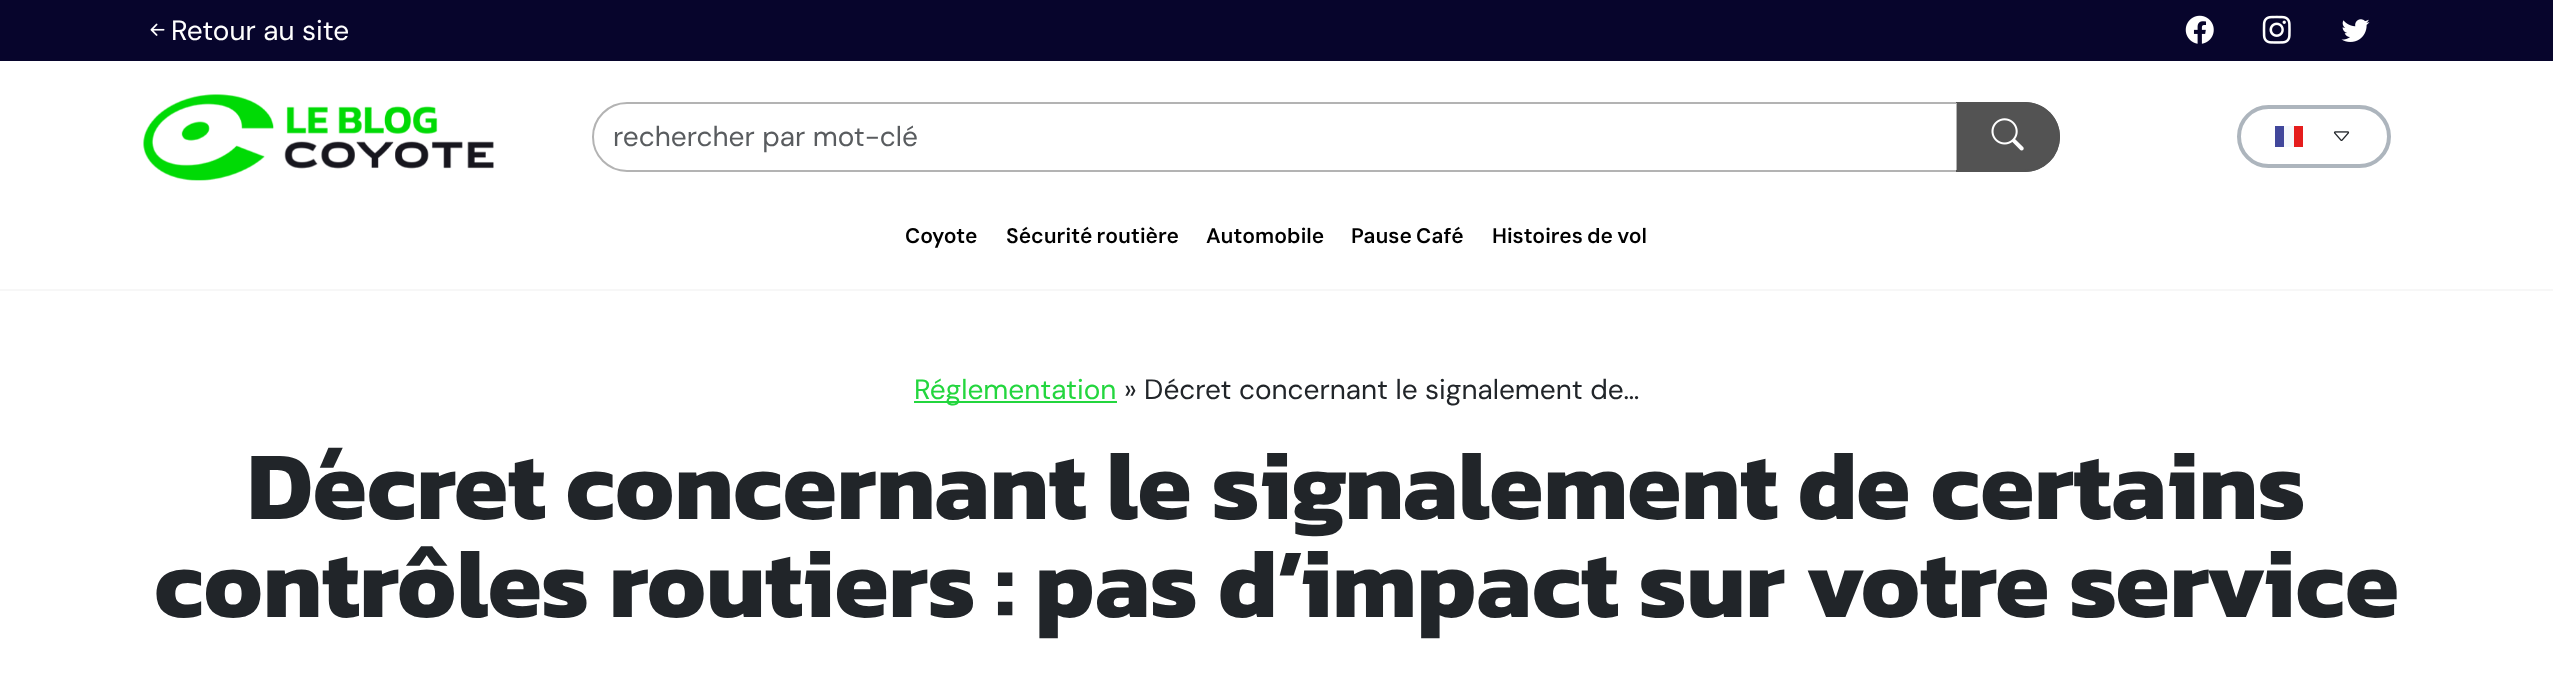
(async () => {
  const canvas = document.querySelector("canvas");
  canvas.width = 2553;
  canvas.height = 694;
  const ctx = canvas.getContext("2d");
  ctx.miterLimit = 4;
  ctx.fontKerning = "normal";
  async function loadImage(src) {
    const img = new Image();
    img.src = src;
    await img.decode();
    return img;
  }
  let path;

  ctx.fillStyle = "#ffffff";
  ctx.fillRect(0, 0, 2553, 694);
  ctx.fillStyle = "#07052c";
  ctx.fillRect(0, 0, 2553, 61);
  ctx.drawImage(await loadImage("img/1.png"), 150, 23, 15, 13);
  ctx.drawImage(await loadImage("img/2.png"), 2185, 15, 29, 29);
  ctx.drawImage(await loadImage("img/3.png"), 2262, 15, 29, 29);
  ctx.drawImage(await loadImage("img/4.png"), 2341, 19, 29, 23);
  ctx.fillStyle = "#f7f7f7";
  ctx.fillRect(0, 289, 2553, 2);
  ctx.drawImage(await loadImage("img/5.png"), 143, 94, 351, 87);
  ctx.beginPath();
  ctx.roundRect(593, 103, 1364, 68, [34, 0, 0, 34]);
  ctx.strokeStyle = "#b3b3b3";
  ctx.lineWidth = 2;
  ctx.stroke();
  ctx.fillStyle = "#535353";
  ctx.beginPath();
  ctx.roundRect(1957, 102, 103, 70, [0, 35, 35, 0]);
  ctx.fill();
  path = new Path2D("M1956 102H2025C2044 102 2060 117 2060 136C2060 156 2044 172 2025 172H1956ZM1956 103H2025C2043 103 2058 118 2058 136C2058 155 2043 170 2025 170H1956Z");
  ctx.fill(path, "evenodd");
  ctx.drawImage(await loadImage("img/6.png"), 1991, 118, 33, 33);
  ctx.beginPath();
  ctx.roundRect(2239, 107, 150, 59, 29.5);
  ctx.strokeStyle = "#adb5bd";
  ctx.lineWidth = 4;
  ctx.stroke();
  for (const [x, y, w, h, color] of [
    [2284, 126, 10, 21, "#f5f8fb"],
    [2275, 126, 9, 21, "#41479b"],
    [2294, 126, 9, 21, "#e51d1d"],
  ]) {
    ctx.fillStyle = color;
    ctx.fillRect(x, y, w, h);
  }
  ctx.drawImage(await loadImage("img/7.png"), 2333, 131, 17, 10);
  ctx.fillStyle = "#23d63e";
  ctx.fillRect(914, 401, 203, 2);
  ctx.font = "28px DM Sans";
  ctx.fillStyle = "#ffffff";
  ctx.fillText("Retour au site", 171, 40);
  ctx.fillStyle = "#595c5f";
  ctx.fillText("rechercher par mot-clé", 613, 146);
  ctx.font = "600 21px DM Sans";
  ctx.fillStyle = "#000000";
  ctx.fillText("Coyote", 905, 243);
  ctx.wordSpacing = "-1px";
  ctx.fillText("Sécurité routière", 1006, 243);
  ctx.wordSpacing = "0px";
  ctx.fillText("Automobile", 1206, 243);
  ctx.wordSpacing = "-1px";
  ctx.fillText("Pause Café", 1351, 243);
  ctx.fillText("Histoires de vol", 1492, 243);
  ctx.wordSpacing = "0px";
  ctx.font = "28px DM Sans";
  ctx.fillStyle = "#23d63e";
  ctx.fillText("Réglementation", 914, 399);
  ctx.fillStyle = "#212529";
  ctx.fillText("» Décret concernant le signalement de…", 1124, 399);
  ctx.font = "bold 98px Kanit";
  ctx.fillText("Décret concernant le signalement de certains", 247, 519);
  ctx.fillText("contrôles routiers : pas d’impact sur votre service", 154, 617);
})();
